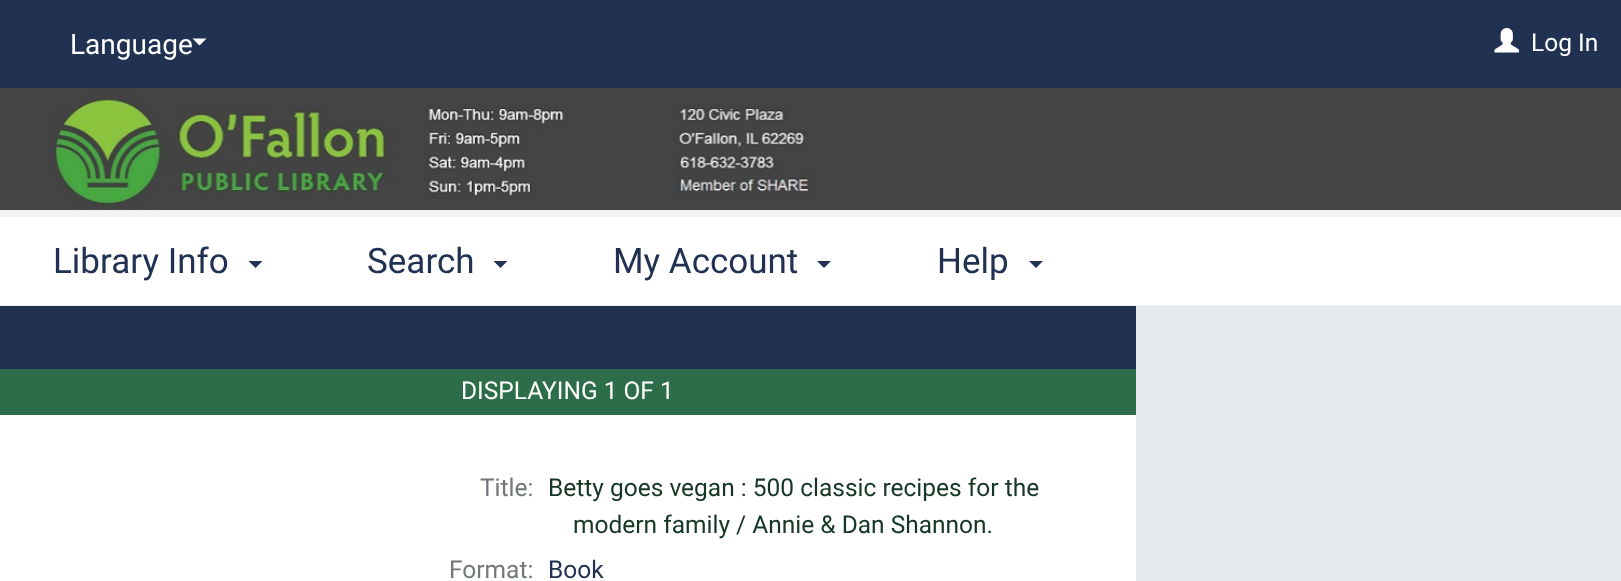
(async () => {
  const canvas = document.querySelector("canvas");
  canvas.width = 1621;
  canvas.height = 581;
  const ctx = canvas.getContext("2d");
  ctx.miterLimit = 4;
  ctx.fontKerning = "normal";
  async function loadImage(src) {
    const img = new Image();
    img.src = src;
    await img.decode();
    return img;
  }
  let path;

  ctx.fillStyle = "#213152";
  ctx.fillRect(0, 0, 1621, 581);
  ctx.fillStyle = "#f1f3f5";
  ctx.fillRect(0, 305, 1621, 1);
  ctx.fillStyle = "#ffffff";
  path = new Path2D("M192.5 38.5H206.5L199.5 45.5Z");
  ctx.fill(path);
  ctx.fillRect(0, 217, 1621, 88);
  ctx.fillStyle = "#f1f3f5";
  ctx.fillRect(0, 210, 1621, 7);
  ctx.fillStyle = "#213152";
  path = new Path2D("M248.5 261H262.5L255.5 268Z");
  ctx.fill(path);
  path = new Path2D("M493.5 261H507.5L500.5 268Z");
  ctx.fill(path);
  path = new Path2D("M817 261H831L824 268Z");
  ctx.fill(path);
  path = new Path2D("M1029 261H1043L1036 268Z");
  ctx.fill(path);
  ctx.drawImage(await loadImage("img/1.png"), 1494, 28, 25, 25);
  ctx.drawImage(await loadImage("img/2.png"), 0, 88, 1621, 122);
  for (const [x, y, w, h, color] of [
    [1136, 306, 485, 275, "#e5e9ec"],
    [0, 415, 1136, 166, "#ffffff"],
    [0, 369, 1136, 46, "#2d6d4a"],
  ]) {
    ctx.fillStyle = color;
    ctx.fillRect(x, y, w, h);
  }
  ctx.font = "28px Roboto";
  ctx.fillStyle = "#ffffff";
  ctx.fillText("Language", 70, 54);
  ctx.font = "35px Roboto";
  ctx.fillStyle = "#213152";
  for (const [text, x, y] of [
    ["Library Info", 53, 273],
    ["Search", 367, 273],
    ["My Account", 613, 273],
    ["Help", 937, 273],
  ]) {
    ctx.fillText(text, x, y);
  }
  ctx.font = "24.5px Roboto";
  ctx.fillStyle = "#ffffff";
  ctx.fillText("Log In", 1531, 51);
  ctx.fillText("DISPLAYING 1 OF 1", 461, 399);
  ctx.fillStyle = "#71777a";
  ctx.fillText("Title:", 480, 496);
  ctx.fillStyle = "#163725";
  ctx.fillText("Betty goes vegan : 500 classic recipes for the", 548, 496);
  ctx.fillText("modern family / Annie & Dan Shannon.", 573, 533);
  ctx.fillStyle = "#71777a";
  ctx.fillText("Format:", 449, 578);
  ctx.fillStyle = "#213152";
  ctx.fillText("Book", 548, 578);
})();
